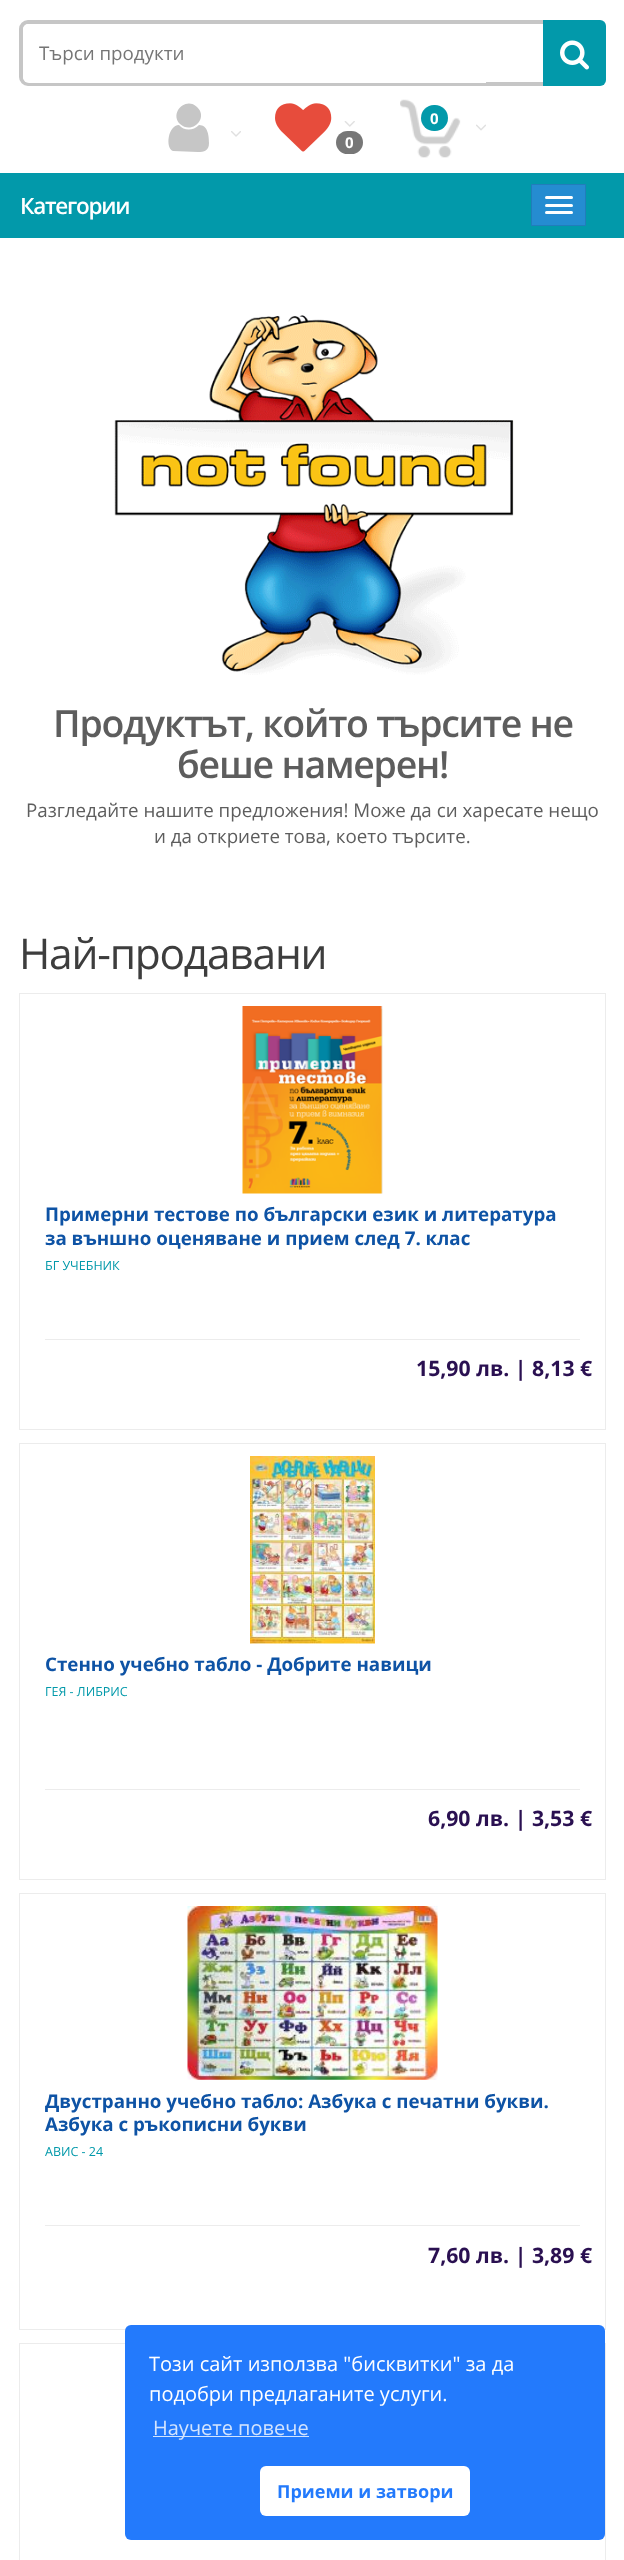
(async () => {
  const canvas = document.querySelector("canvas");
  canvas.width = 624;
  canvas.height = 2560;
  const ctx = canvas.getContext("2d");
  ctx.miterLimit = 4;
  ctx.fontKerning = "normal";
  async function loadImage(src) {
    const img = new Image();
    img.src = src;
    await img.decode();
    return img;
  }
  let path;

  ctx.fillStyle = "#ffffff";
  ctx.fillRect(0, 0, 624, 2560);
  ctx.beginPath();
  ctx.roundRect(21, 22, 583, 62, 7);
  ctx.strokeStyle = "#c6c6c6";
  ctx.lineWidth = 4;
  ctx.stroke();
  ctx.beginPath();
  ctx.roundRect(23, 24, 463, 59, [6, 0, 0, 6]);
  ctx.fill();
  ctx.fillStyle = "#0299aa";
  ctx.beginPath();
  ctx.roundRect(543, 20, 63, 66, [0, 6, 6, 0]);
  ctx.fill();
  ctx.drawImage(await loadImage("img/1.png"), 560, 40, 29, 30);
  ctx.fillStyle = "#c6c6c6";
  path = new Path2D("M209 143C209 151 204 152 198 152L173 151C165 148 168 125 179 125C184 131 193 131 199 125C208 125 209 136 209 143ZM197 107C209 118 192 135 180 124C169 113 186 96 197 107Z");
  ctx.fill(path);
  ctx.drawImage(await loadImage("img/2.png"), 231, 131, 10, 6);
  ctx.drawImage(await loadImage("img/3.png"), 400, 99, 61, 59);
  ctx.fillStyle = "#0299aa";
  ctx.beginPath();
  ctx.roundRect(421, 105, 27, 26, 13);
  ctx.fill();
  ctx.drawImage(await loadImage("img/4.png"), 476, 124, 10, 7);
  ctx.drawImage(await loadImage("img/5.png"), 344, 121, 11, 6);
  ctx.drawImage(await loadImage("img/6.png"), 275, 103, 57, 49);
  ctx.fillStyle = "#777777";
  ctx.beginPath();
  ctx.roundRect(336, 131, 27, 23, 11.5);
  ctx.fill();
  ctx.fillStyle = "#0299aa";
  ctx.fillRect(0, 173, 624, 65);
  ctx.fillStyle = "#258cd1";
  ctx.beginPath();
  ctx.rect(531.5, 184.5, 54, 41);
  ctx.fill();
  ctx.strokeStyle = "#217dbb";
  ctx.lineWidth = 1;
  ctx.stroke();
  ctx.fillStyle = "#ffffff";
  ctx.beginPath();
  ctx.roundRect(545, 196, 28, 3, 1.5);
  ctx.fill();
  ctx.beginPath();
  ctx.roundRect(545, 204, 28, 3, 1.5);
  ctx.fill();
  ctx.beginPath();
  ctx.roundRect(545, 211, 28, 3, 1.5);
  ctx.fill();
  ctx.drawImage(await loadImage("img/7.png"), 114, 315, 400, 360);
  ctx.strokeStyle = "#ececec";
  ctx.strokeRect(19.5, 993.5, 586, 436);
  ctx.drawImage(await loadImage("img/8.png"), 242, 1006, 141, 188);
  ctx.fillStyle = "#ececec";
  ctx.fillRect(45, 1339, 535, 1);
  ctx.strokeRect(19.5, 1443.5, 586, 436);
  ctx.drawImage(await loadImage("img/9.png"), 250, 1456, 125, 188);
  ctx.fillRect(45, 1789, 535, 1);
  ctx.strokeRect(19.5, 1893.5, 586, 436);
  ctx.drawImage(await loadImage("img/10.png"), 187, 1906, 251, 174);
  ctx.fillRect(45, 2225, 535, 1);
  ctx.strokeRect(19.5, 2343.5, 586, 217);
  ctx.fillStyle = "#237afc";
  ctx.beginPath();
  ctx.roundRect(125, 2325, 480, 215, 6);
  ctx.fill();
  ctx.fillStyle = "#d3e4fe";
  ctx.fillRect(153, 2436, 156, 1);
  ctx.fillStyle = "#ffffff";
  ctx.beginPath();
  ctx.roundRect(260, 2466, 210, 50, 6);
  ctx.fill();
  ctx.font = "18.75px Open Sans";
  ctx.fillStyle = "#757575";
  ctx.fillText("Търси продукти", 39, 60);
  ctx.font = "bold 15px Open Sans";
  ctx.fillStyle = "#ffffff";
  ctx.fillText("0", 430, 124);
  ctx.fillText("0", 345, 148);
  ctx.letterSpacing = "-1.25px";
  ctx.font = "600 22.5px Open Sans";
  ctx.fillText("Категории", 20, 214);
  ctx.font = "600 37.5px Open Sans";
  ctx.fillStyle = "#5d5d5d";
  ctx.fillText("Продуктът, който търсите не", 53, 737);
  ctx.fillText("беше намерен!", 177, 778);
  ctx.letterSpacing = "0px";
  ctx.font = "18.75px Open Sans";
  ctx.fillText("Разгледайте нашите предложения! Може да си харесате нещо", 26, 817);
  ctx.fillText("и да откриете това, което търсите.", 154, 843);
  ctx.letterSpacing = "-1.25px";
  ctx.font = "42.5px Open Sans";
  ctx.fillStyle = "#3d3d3d";
  ctx.fillText("Най-продавани", 19, 969);
  ctx.letterSpacing = "0px";
  ctx.font = "bold 18.75px Open Sans";
  ctx.fillStyle = "#0e53a5";
  ctx.fillText("Примерни тестове по български език и литература", 45, 1221);
  ctx.fillText("за външно оценяване и прием след 7. клас", 45, 1245);
  ctx.font = "12.5px Open Sans";
  ctx.fillStyle = "#0299aa";
  ctx.fillText("БГ УЧЕБНИК", 45, 1270);
  ctx.font = "bold 21.25px Open Sans";
  ctx.fillStyle = "#2a1051";
  ctx.fillText("15,90 лв. | 8,13 €", 416, 1376);
  ctx.font = "bold 18.75px Open Sans";
  ctx.fillStyle = "#0e53a5";
  ctx.fillText("Стенно учебно табло - Добрите навици", 45, 1671);
  ctx.font = "12.5px Open Sans";
  ctx.fillStyle = "#0299aa";
  ctx.fillText("ГЕЯ - ЛИБРИС", 45, 1696);
  ctx.font = "bold 21.25px Open Sans";
  ctx.fillStyle = "#2a1051";
  ctx.fillText("6,90 лв. | 3,53 €", 428, 1826);
  ctx.font = "bold 18.75px Open Sans";
  ctx.fillStyle = "#0e53a5";
  ctx.fillText("Двустранно учебно табло: Азбука с печатни букви.", 45, 2108);
  ctx.fillText("Азбука с ръкописни букви", 45, 2131);
  ctx.font = "12.5px Open Sans";
  ctx.fillStyle = "#0299aa";
  ctx.fillText("АВИС - 24", 45, 2156);
  ctx.font = "bold 21.25px Open Sans";
  ctx.fillStyle = "#2a1051";
  ctx.fillText("7,60 лв. | 3,89 €", 428, 2263);
  ctx.font = "20px Open Sans";
  ctx.fillStyle = "#ffffff";
  ctx.fillText("Този сайт използва \"бисквитки\" за да", 149, 2371);
  ctx.fillText("подобри предлаганите услуги.", 149, 2401);
  ctx.fillStyle = "#d3e4fe";
  ctx.fillText("Научете повече", 153, 2435);
  ctx.font = "bold 18px Open Sans";
  ctx.fillStyle = "#237afc";
  ctx.fillText("Приеми и затвори", 277, 2498);
})();
